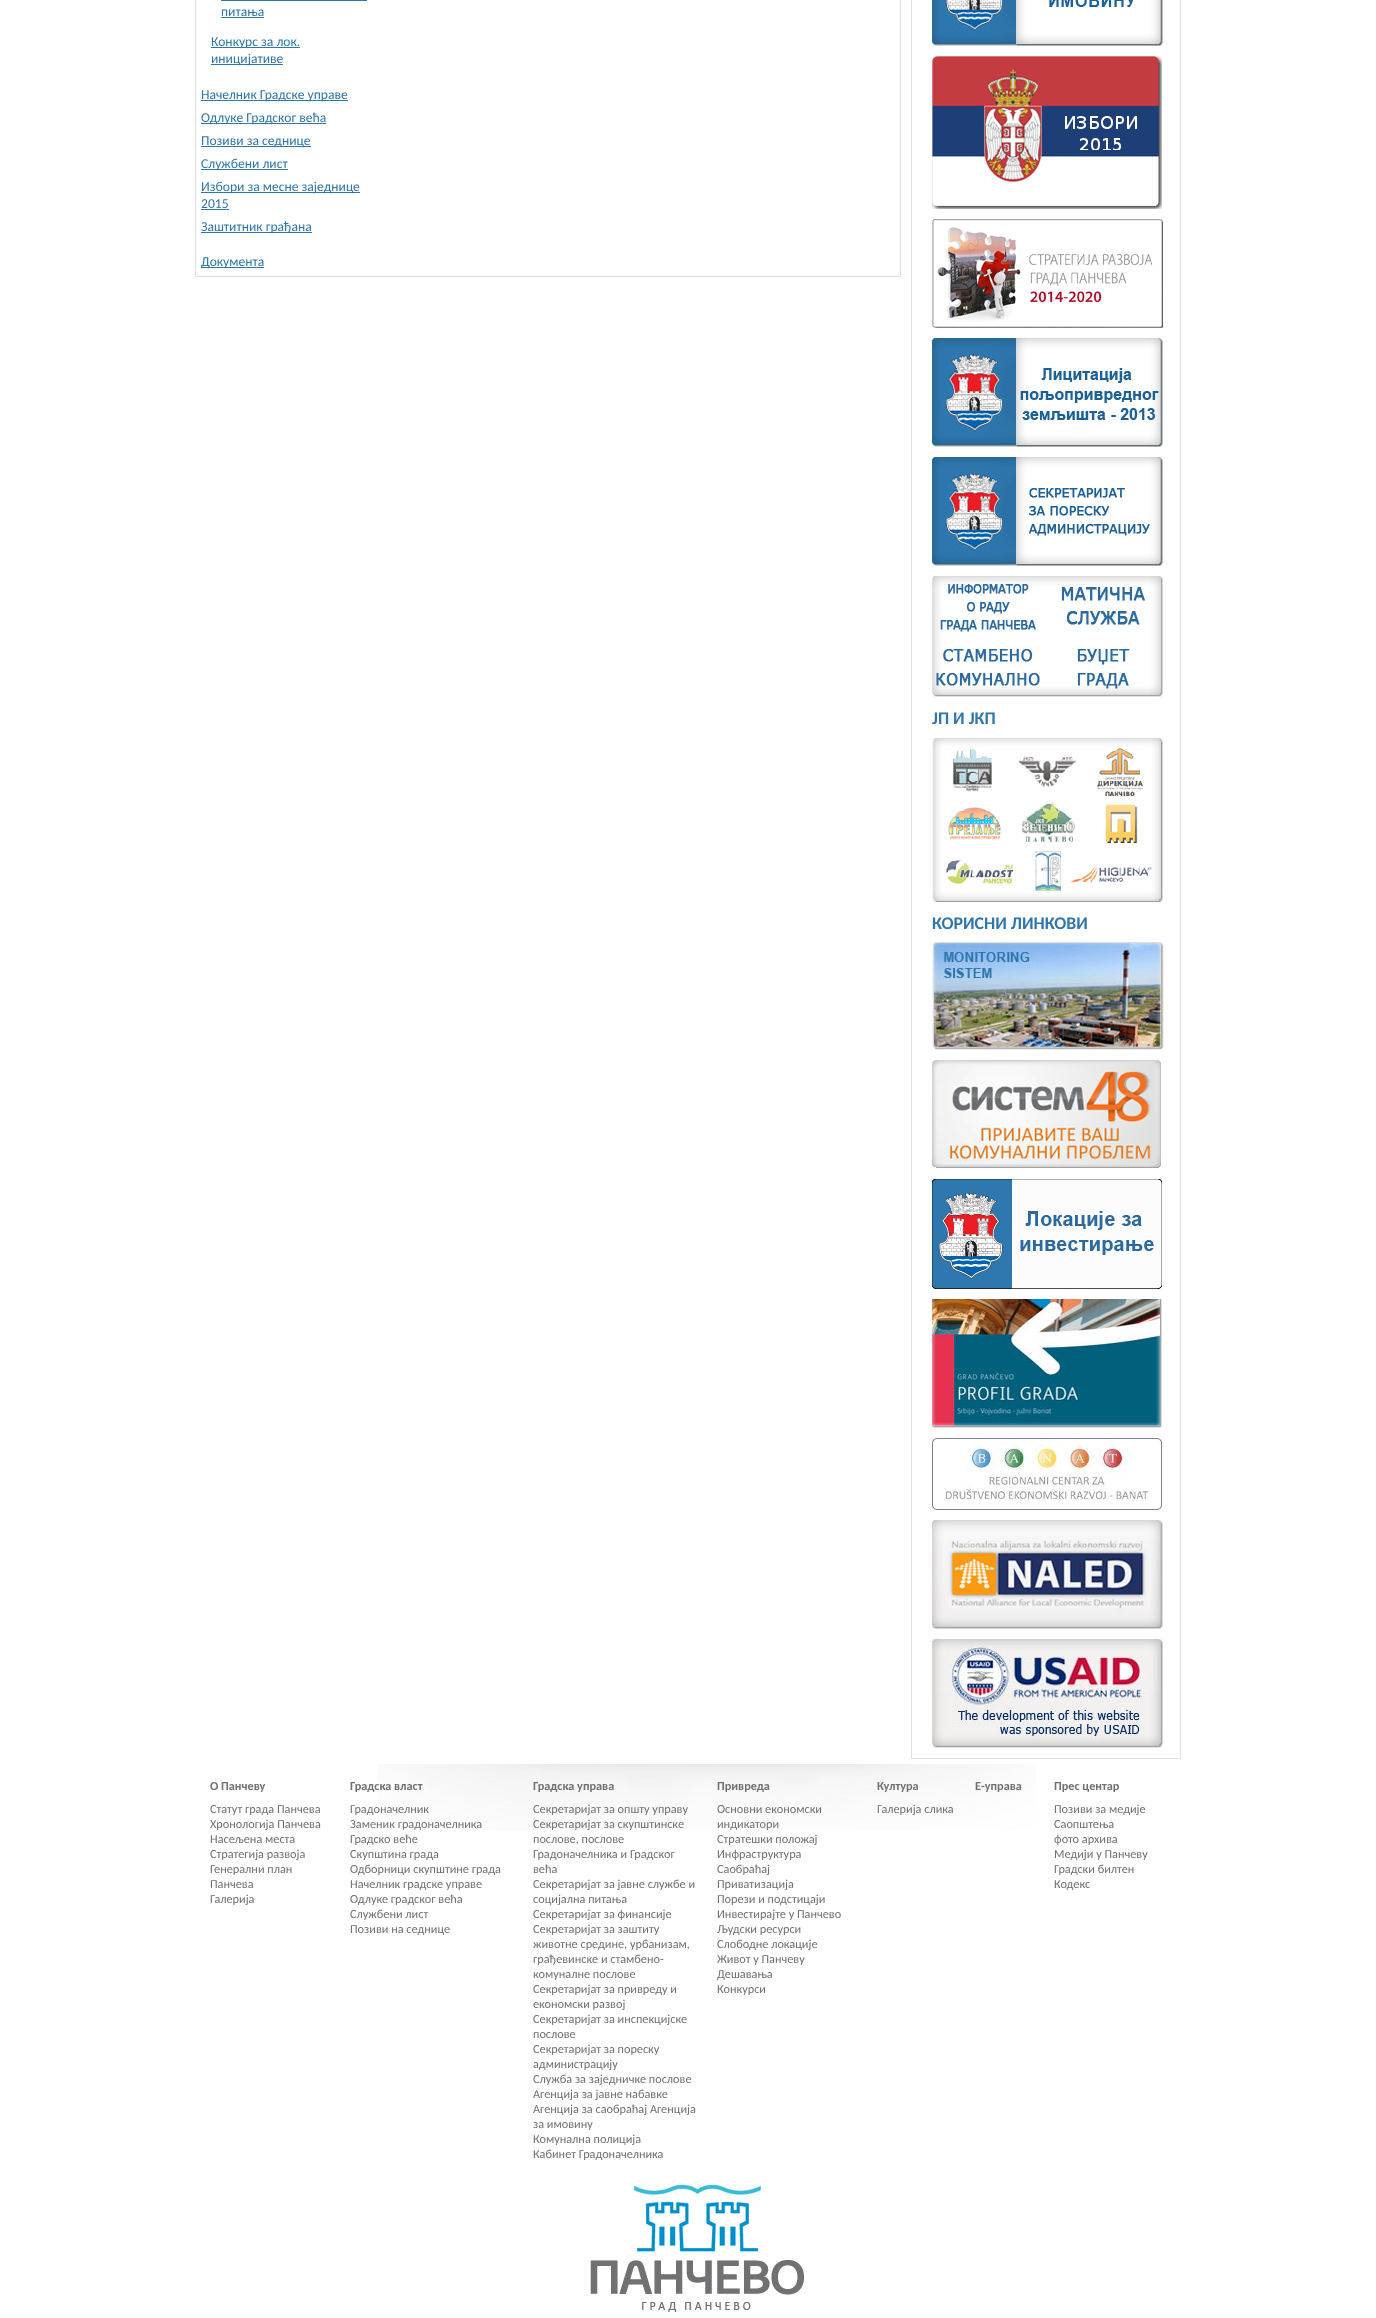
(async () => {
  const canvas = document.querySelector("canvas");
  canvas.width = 1376;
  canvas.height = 2318;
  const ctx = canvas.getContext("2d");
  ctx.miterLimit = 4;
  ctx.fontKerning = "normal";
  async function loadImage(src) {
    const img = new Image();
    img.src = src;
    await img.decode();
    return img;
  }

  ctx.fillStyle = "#ffffff";
  ctx.fillRect(0, 0, 1376, 2318);
  ctx.strokeStyle = "#e1e1e1";
  ctx.strokeRect(195.5, -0.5, 705, 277);
  for (const [x, y, w, h, color] of [
    [221, 0, 146, 1, "#2f76ac"],
    [221, 17, 43, 1, "#2f76ac"],
    [211, 47, 89, 1, "#2f76ac"],
    [211, 64, 72, 1, "#2f76ac"],
    [201, 100, 147, 1, "#2f76ac"],
    [201, 123, 125, 1, "#2f76ac"],
    [201, 146, 110, 1, "#2f76ac"],
    [201, 169, 87, 1, "#2f76ac"],
    [201, 192, 159, 1, "#2f76ac"],
    [201, 209, 28, 1, "#2f76ac"],
    [201, 232, 111, 1, "#2f76ac"],
    [201, 267, 63, 1, "#2f76ac"],
  ]) {
    ctx.fillStyle = color;
    ctx.fillRect(x, y, w, h);
  }
  ctx.strokeRect(911.5, -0.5, 269, 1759);
  ctx.drawImage(await loadImage("img/1.png"), 932, 0, 231, 46);
  ctx.drawImage(await loadImage("img/2.png"), 932, 56, 230, 153);
  ctx.drawImage(await loadImage("img/3.png"), 932, 219, 231, 109);
  ctx.drawImage(await loadImage("img/4.png"), 932, 338, 231, 109);
  ctx.drawImage(await loadImage("img/5.png"), 932, 457, 231, 109);
  ctx.drawImage(await loadImage("img/6.png"), 932, 576, 231, 121);
  ctx.drawImage(await loadImage("img/7.png"), 940, 584, 96, 48);
  ctx.drawImage(await loadImage("img/8.png"), 1061, 587, 84, 38);
  ctx.drawImage(await loadImage("img/9.png"), 936, 649, 104, 37);
  ctx.drawImage(await loadImage("img/10.png"), 1077, 649, 53, 40);
  ctx.drawImage(await loadImage("img/11.png"), 932, 738, 231, 164);
  ctx.drawImage(await loadImage("img/12.png"), 953, 749, 39, 43);
  ctx.drawImage(await loadImage("img/13.png"), 1019, 757, 57, 30);
  ctx.drawImage(await loadImage("img/14.png"), 1097, 747, 46, 49);
  ctx.drawImage(await loadImage("img/15.png"), 948, 807, 53, 33);
  ctx.drawImage(await loadImage("img/16.png"), 1021, 802, 54, 40);
  ctx.drawImage(await loadImage("img/17.png"), 1105, 804, 33, 40);
  ctx.drawImage(await loadImage("img/18.png"), 946, 860, 67, 24);
  ctx.drawImage(await loadImage("img/19.png"), 1035, 851, 26, 40);
  ctx.drawImage(await loadImage("img/20.png"), 1069, 866, 83, 17);
  ctx.drawImage(await loadImage("img/21.png"), 932, 942, 232, 108);
  ctx.drawImage(await loadImage("img/22.png"), 932, 1060, 229, 108);
  ctx.drawImage(await loadImage("img/23.png"), 932, 1179, 230, 110);
  ctx.drawImage(await loadImage("img/24.png"), 932, 1299, 230, 129);
  ctx.drawImage(await loadImage("img/25.png"), 932, 1438, 230, 72);
  ctx.drawImage(await loadImage("img/26.png"), 932, 1520, 231, 109);
  ctx.drawImage(await loadImage("img/27.png"), 932, 1639, 231, 109);
  ctx.drawImage(await loadImage("img/28.png"), 378, 1764, 658, 66);
  ctx.drawImage(await loadImage("img/29.png"), 590, 2184, 214, 128);
  ctx.font = "13.6px Carlito";
  for (const [text, x, y] of [
    ["питања", 221, 16],
    ["Конкурс за лок.", 211, 46],
    ["иницијативе", 211, 63],
    ["Начелник Градске управе", 201, 99],
    ["Одлуке Градског већа", 201, 122],
    ["Позиви за седнице", 201, 145],
    ["Службени лист", 201, 168],
    ["Избори за месне заједнице", 201, 191],
    ["2015", 201, 208],
    ["Заштитник грађана", 201, 231],
    ["Документа", 201, 266],
  ]) {
    ctx.fillText(text, x, y);
  }
  ctx.font = "bold 17.75px Carlito";
  ctx.fillText("ЈП И ЈКП", 932, 724);
  ctx.fillText("КОРИСНИ ЛИНКОВИ", 932, 929);
  ctx.font = "bold 12.25px Carlito";
  ctx.fillStyle = "#717073";
  for (const [text, x, y] of [
    ["О Панчеву", 210, 1790],
    ["Градска власт", 350, 1790],
    ["Градска управа", 533, 1790],
    ["Привреда", 717, 1790],
    ["Култура", 877, 1790],
    ["Е-управа", 975, 1790],
    ["Прес центар", 1054, 1790],
  ]) {
    ctx.fillText(text, x, y);
  }
  ctx.font = "12.25px Carlito";
  for (const [text, x, y] of [
    ["Статут града Панчева", 210, 1813],
    ["Хронологија Панчева", 210, 1828],
    ["Насељена места", 210, 1843],
    ["Стратегија развоја", 210, 1858],
    ["Генерални план", 210, 1873],
    ["Панчева", 210, 1888],
    ["Галерија", 210, 1903],
    ["Градоначелник", 350, 1813],
    ["Заменик градоначелника", 350, 1828],
    ["Градско веће", 350, 1843],
    ["Скупштина града", 350, 1858],
    ["Одборници скупштине града", 350, 1873],
    ["Начелник градске управе", 350, 1888],
    ["Одлуке градског већа", 350, 1903],
    ["Службени лист", 350, 1918],
    ["Позиви на седнице", 350, 1933],
    ["Секретаријат за општу управу", 533, 1813],
    ["Секретаријат за скупштинске", 533, 1828],
    ["послове, послове", 533, 1843],
    ["Градоначелника и Градског", 533, 1858],
    ["већа", 533, 1873],
    ["Секретаријат за јавне службе и", 533, 1888],
    ["социјална питања", 533, 1903],
    ["Секретаријат за финансије", 533, 1918],
    ["Секретаријат за заштиту", 533, 1933],
    ["животне средине, урбанизам,", 533, 1948],
    ["грађевинске и стамбено-", 533, 1963],
    ["комуналне послове", 533, 1978],
    ["Секретаријат за привреду и", 533, 1993],
    ["економски развој", 533, 2008],
    ["Секретаријат за инспекцијске", 533, 2023],
    ["послове", 533, 2038],
    ["Секретаријат за пореску", 533, 2053],
    ["администрацију", 533, 2068],
    ["Служба за заједничке послове", 533, 2083],
    ["Агенција за јавне набавке", 533, 2098],
    ["Агенција за саобраћај Агенција", 533, 2113],
    ["за имовину", 533, 2128],
    ["Комунална полиција", 533, 2143],
    ["Кабинет Градоначелника", 533, 2158],
    ["Основни економски", 717, 1813],
    ["индикатори", 717, 1828],
    ["Стратешки положај", 717, 1843],
    ["Инфраструктура", 717, 1858],
    ["Саобраћај", 717, 1873],
    ["Приватизација", 717, 1888],
    ["Порези и подстицаји", 717, 1903],
    ["Инвестирајте у Панчево", 717, 1918],
    ["Људски ресурси", 717, 1933],
    ["Слободне локације", 717, 1948],
    ["Живот у Панчеву", 717, 1963],
    ["Дешавања", 717, 1978],
    ["Конкурси", 717, 1993],
    ["Галерија слика", 877, 1813],
    ["Позиви за медије", 1054, 1813],
    ["Саопштења", 1054, 1828],
    ["фото архива", 1054, 1843],
    ["Медији у Панчеву", 1054, 1858],
    ["Градски билтен", 1054, 1873],
    ["Кодекс", 1054, 1888],
  ]) {
    ctx.fillText(text, x, y);
  }
})();
